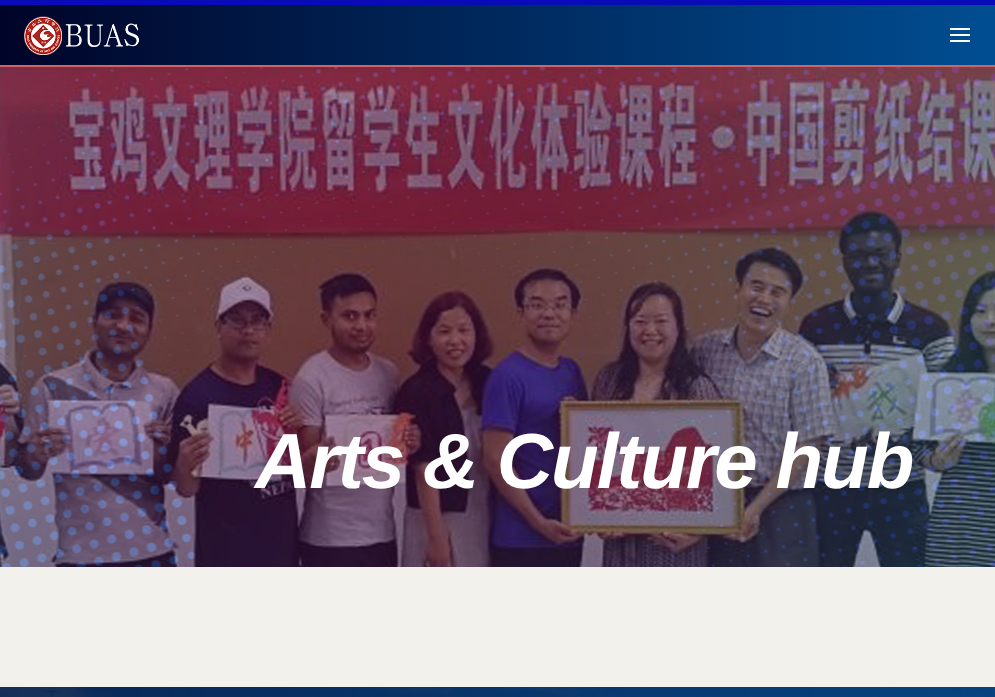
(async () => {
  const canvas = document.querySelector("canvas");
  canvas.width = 995;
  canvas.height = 697;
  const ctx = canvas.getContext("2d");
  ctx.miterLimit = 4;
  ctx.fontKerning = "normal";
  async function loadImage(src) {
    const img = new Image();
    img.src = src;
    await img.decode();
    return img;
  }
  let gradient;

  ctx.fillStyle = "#f3f1ec";
  ctx.fillRect(0, 0, 995, 697);
  gradient = ctx.createLinearGradient(995, 35, 0, 35);
  gradient.addColorStop(0, "#004e92");
  gradient.addColorStop(1, "#000428");
  ctx.fillStyle = gradient;
  ctx.fillRect(0, 5, 995, 60);
  ctx.fillStyle = "#080bb7";
  ctx.fillRect(0, 0, 995, 5);
  ctx.fillStyle = "#d06363";
  ctx.fillRect(0, 65, 995, 2);
  ctx.drawImage(await loadImage("img/1.png"), 24, 16, 116, 39);
  for (const [x, y, w, h, color] of [
    [950, 28, 20, 2, "#ffffff"],
    [950, 34, 20, 2, "#ffffff"],
    [950, 40, 20, 2, "#ffffff"],
  ]) {
    ctx.fillStyle = color;
    ctx.fillRect(x, y, w, h);
  }
  ctx.drawImage(await loadImage("img/2.png"), 0, 67, 995, 500);
  ctx.drawImage(await loadImage("img/3.png"), 0, 687, 995, 10);
  ctx.letterSpacing = "-2px";
  ctx.font = "italic bold 78px Liberation Sans";
  ctx.fillText("Arts & Culture hub", 255, 488);
})();
